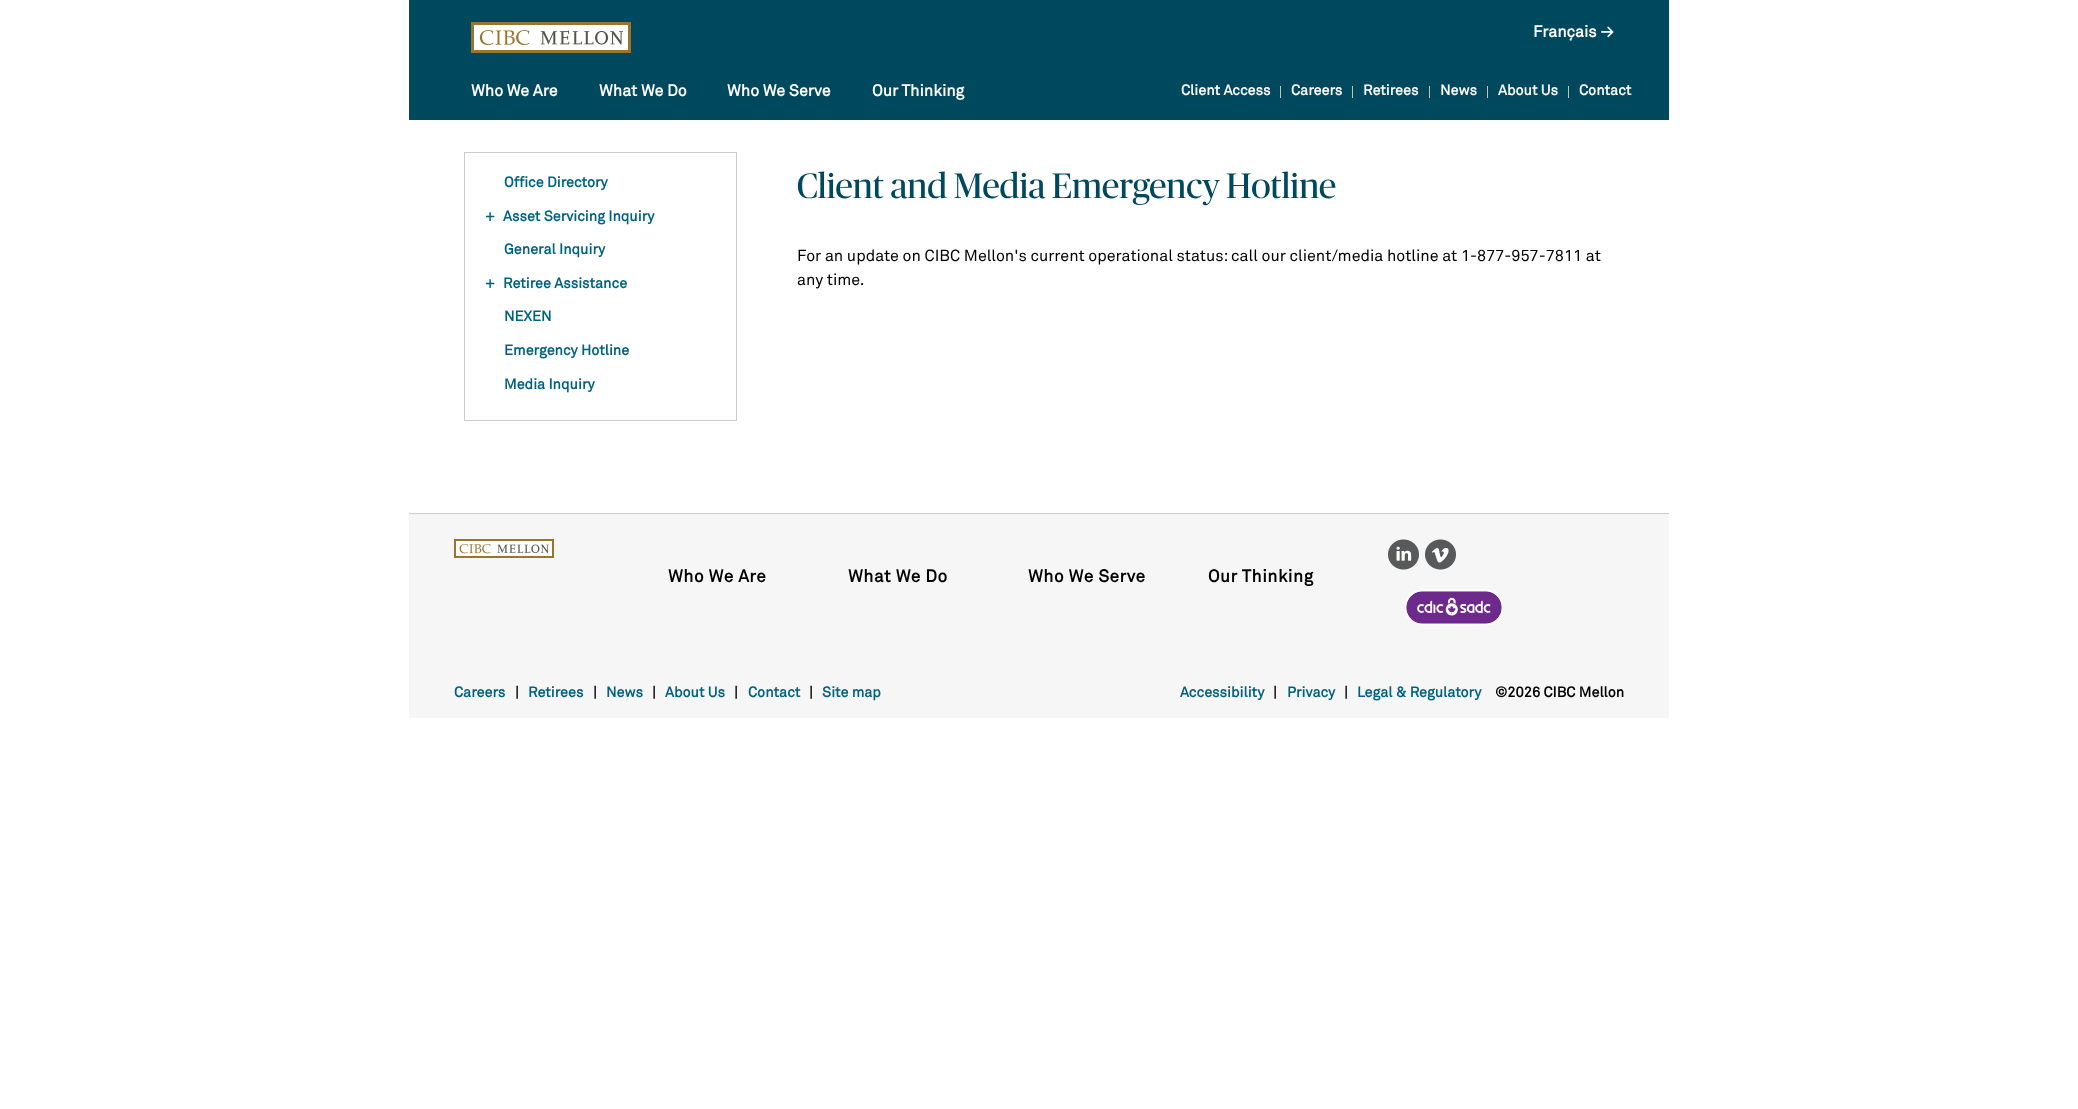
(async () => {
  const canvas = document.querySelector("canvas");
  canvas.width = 2078;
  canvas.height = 1109;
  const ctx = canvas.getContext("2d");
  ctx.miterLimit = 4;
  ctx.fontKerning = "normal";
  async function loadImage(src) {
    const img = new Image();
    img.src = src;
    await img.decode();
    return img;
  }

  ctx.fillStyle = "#ffffff";
  ctx.fillRect(0, 0, 2078, 1109);
  ctx.fillStyle = "#00485e";
  ctx.fillRect(409, 0, 1260, 120);
  ctx.drawImage(await loadImage("img/1.png"), 471, 22, 160, 31);
  for (const [x, y, w, h, color] of [
    [1280, 86, 1, 12, "#cbc2a3"],
    [1352, 86, 1, 12, "#cbc2a3"],
    [1429, 86, 1, 12, "#cbc2a3"],
    [1487, 86, 1, 12, "#cbc2a3"],
    [1568, 86, 1, 12, "#cbc2a3"],
  ]) {
    ctx.fillStyle = color;
    ctx.fillRect(x, y, w, h);
  }
  ctx.strokeStyle = "#cccccc";
  ctx.strokeRect(464.5, 152.5, 272, 268);
  ctx.fillStyle = "#f6f6f6";
  ctx.fillRect(409, 514, 1260, 204);
  ctx.fillStyle = "#cccccc";
  ctx.fillRect(409, 513, 1260, 1);
  ctx.drawImage(await loadImage("img/2.png"), 454, 539, 100, 19);
  ctx.drawImage(await loadImage("img/3.png"), 1388, 539, 31, 31);
  ctx.drawImage(await loadImage("img/4.png"), 1425, 539, 31, 31);
  ctx.drawImage(await loadImage("img/5.png"), 1404, 589, 100, 37);
  ctx.font = "bold 16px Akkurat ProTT";
  ctx.fillStyle = "#ffffff";
  for (const [text, x, y] of [
    ["Français →", 1533, 37],
    ["Who We Are", 471, 96],
    ["What We Do", 599, 96],
    ["Who We Serve", 727, 96],
    ["Our Thinking", 872, 96],
  ]) {
    ctx.fillText(text, x, y);
  }
  ctx.font = "bold 14.4px Akkurat ProTT";
  for (const [text, x, y] of [
    ["Client Access", 1181, 95],
    ["Careers", 1291, 95],
    ["Retirees", 1363, 95],
    ["News", 1440, 95],
    ["About Us", 1498, 95],
    ["Contact", 1579, 95],
  ]) {
    ctx.fillText(text, x, y);
  }
  ctx.fillStyle = "#006280";
  for (const [text, x, y] of [
    ["Office Directory", 504, 187],
    ["+", 485, 221],
    ["Asset Servicing Inquiry", 503, 221],
    ["General Inquiry", 504, 254],
    ["+", 485, 288],
    ["Retiree Assistance", 503, 288],
    ["NEXEN", 504, 321],
    ["Emergency Hotline", 504, 355],
    ["Media Inquiry", 504, 389],
  ]) {
    ctx.fillText(text, x, y);
  }
  ctx.font = "35.25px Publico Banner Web";
  ctx.fillStyle = "#00485e";
  ctx.fillText("Client and Media Emergency Hotline", 797, 198);
  ctx.font = "16px Akkurat ProTT";
  ctx.fillStyle = "#000000";
  ctx.fillText("For an update on CIBC Mellon's current operational status: call our client/media hotline at 1-877-957-7811 at", 797, 261);
  ctx.fillText("any time.", 797, 285);
  ctx.letterSpacing = "0.5px";
  ctx.font = "bold 17.25px Akkurat ProTT";
  for (const [text, x, y] of [
    ["Who We Are", 668, 582],
    ["What We Do", 848, 582],
    ["Who We Serve", 1028, 582],
    ["Our Thinking", 1208, 582],
  ]) {
    ctx.fillText(text, x, y);
  }
  ctx.letterSpacing = "0px";
  ctx.font = "bold 14.4px Akkurat ProTT";
  ctx.fillStyle = "#006280";
  ctx.fillText("Careers", 454, 697);
  ctx.fillStyle = "#000000";
  ctx.fillText("|", 515, 697);
  ctx.fillStyle = "#006280";
  ctx.fillText("Retirees", 528, 697);
  ctx.fillStyle = "#000000";
  ctx.fillText("|", 593, 697);
  ctx.fillStyle = "#006280";
  ctx.fillText("News", 606, 697);
  ctx.fillStyle = "#000000";
  ctx.fillText("|", 652, 697);
  ctx.fillStyle = "#006280";
  ctx.fillText("About Us", 665, 697);
  ctx.fillStyle = "#000000";
  ctx.fillText("|", 734, 697);
  ctx.fillStyle = "#006280";
  ctx.fillText("Contact", 748, 697);
  ctx.fillStyle = "#000000";
  ctx.fillText("|", 809, 697);
  ctx.fillStyle = "#006280";
  ctx.fillText("Site map", 822, 697);
  ctx.fillText("Accessibility", 1180, 697);
  ctx.fillStyle = "#000000";
  ctx.fillText("|", 1273, 697);
  ctx.fillStyle = "#006280";
  ctx.fillText("Privacy", 1287, 697);
  ctx.fillStyle = "#000000";
  ctx.fillText("|", 1344, 697);
  ctx.fillStyle = "#006280";
  ctx.fillText("Legal & Regulatory", 1357, 697);
  ctx.fillStyle = "#000000";
  ctx.fillText("©2026 CIBC Mellon", 1495, 697);
})();
